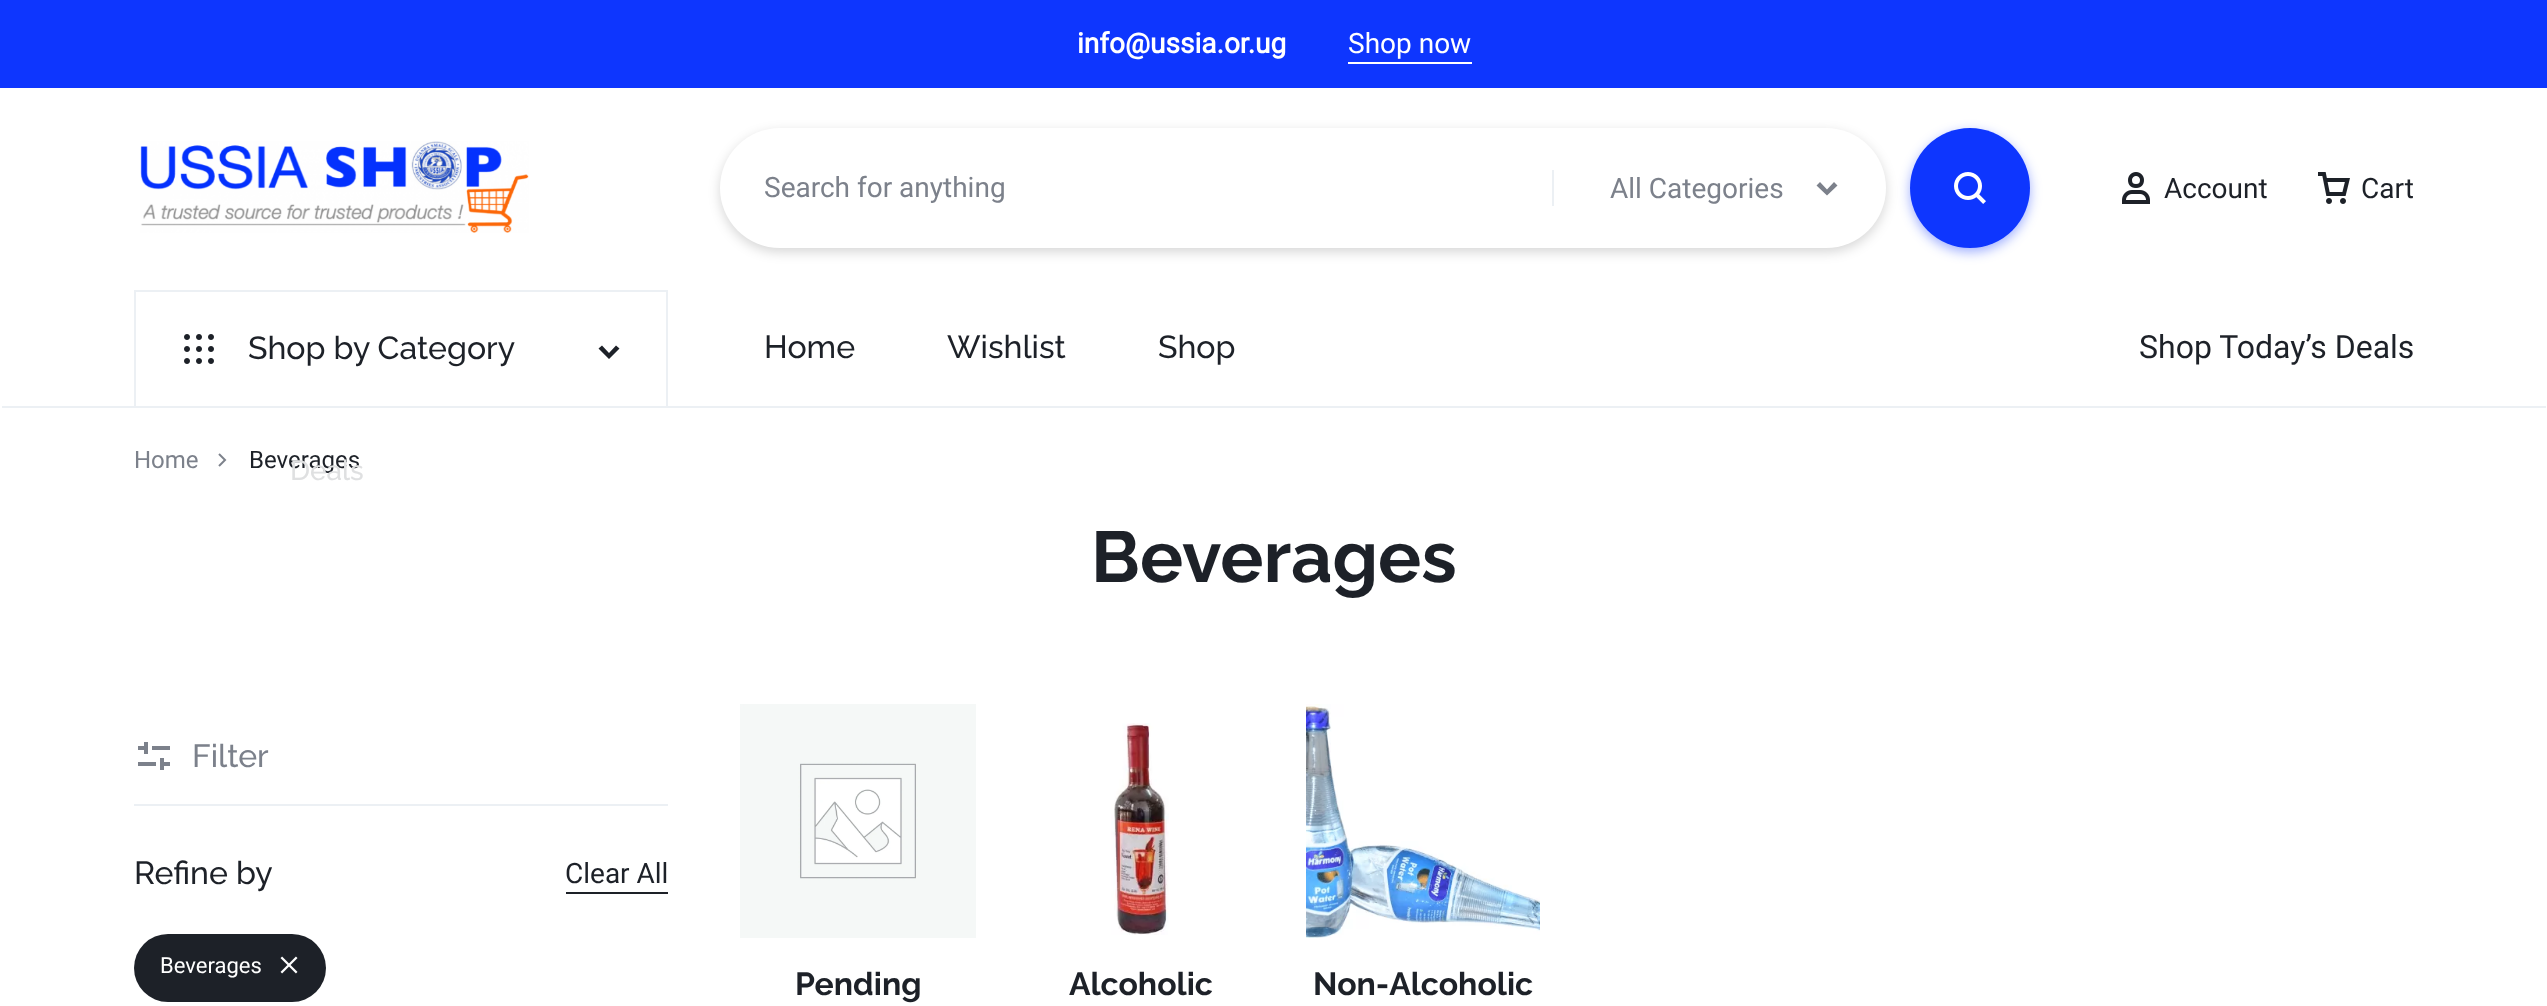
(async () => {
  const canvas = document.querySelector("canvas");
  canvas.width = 2547;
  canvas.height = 1006;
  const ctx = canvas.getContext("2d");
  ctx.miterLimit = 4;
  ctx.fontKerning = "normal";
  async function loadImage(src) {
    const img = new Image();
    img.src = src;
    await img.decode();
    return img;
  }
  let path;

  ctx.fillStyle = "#ffffff";
  ctx.fillRect(0, 0, 2547, 1006);
  ctx.fillStyle = "#0e36fe";
  ctx.fillRect(0, 0, 2547, 88);
  ctx.fillStyle = "#ffffff";
  ctx.fillRect(1348, 62, 124, 2);
  ctx.drawImage(await loadImage("img/1.png"), 140, 141, 389, 92);
  ctx.fillStyle = "rgba(0, 0, 0, 0.16)";
  ctx.filter = "blur(6px)";
  ctx.beginPath();
  ctx.roundRect(720, 132, 1166, 120, 60);
  ctx.fill();
  ctx.filter = "none";
  ctx.fillStyle = "#ffffff";
  ctx.beginPath();
  ctx.roundRect(720, 128, 1166, 120, 60);
  ctx.fill();
  ctx.fillStyle = "#ecf0f4";
  ctx.fillRect(1552, 170, 2, 36);
  ctx.fillStyle = "#7c818b";
  path = new Path2D("M1827 195.5L1816.5 185.5L1820 182L1827 189.5L1834 182L1837.5 185.5Z");
  ctx.fill(path);
  ctx.fillStyle = "rgba(14, 54, 254, 0.4)";
  ctx.filter = "blur(6px)";
  ctx.beginPath();
  ctx.roundRect(1910, 132, 120, 120, 60);
  ctx.fill();
  ctx.filter = "none";
  ctx.fillStyle = "#0e36fe";
  ctx.beginPath();
  ctx.arc(1970, 188, 60, 0, Math.PI * 2);
  ctx.fill();
  ctx.drawImage(await loadImage("img/2.png"), 1954, 172, 32, 32);
  ctx.drawImage(await loadImage("img/3.png"), 2122, 172, 28, 32);
  ctx.drawImage(await loadImage("img/4.png"), 2318, 172, 32, 32);
  for (const [x, y, w, h, color] of [
    [134, 290, 534, 2, "#ecf0f4"],
    [666, 290, 2, 116, "#ecf0f4"],
    [134, 290, 2, 116, "#ecf0f4"],
  ]) {
    ctx.fillStyle = color;
    ctx.fillRect(x, y, w, h);
  }
  ctx.drawImage(await loadImage("img/5.png"), 184, 334, 30, 30);
  ctx.fillStyle = "#1d2128";
  path = new Path2D("M609 359L598.5 348.5L602 345.5L609 353L616 345.5L619.5 348.5Z");
  ctx.fill(path);
  ctx.fillStyle = "#ecf0f4";
  ctx.fillRect(2, 406, 2544, 2);
  ctx.drawImage(await loadImage("img/6.png"), 218, 453, 9, 14);
  ctx.fillRect(134, 804, 534, 2);
  ctx.drawImage(await loadImage("img/7.png"), 138, 742, 32, 28);
  ctx.fillStyle = "#1d2128";
  ctx.fillRect(566, 892, 102, 2);
  ctx.beginPath();
  ctx.roundRect(134, 934, 192, 68, 34);
  ctx.fill();
  ctx.drawImage(await loadImage("img/8.png"), 280, 956, 18, 18);
  ctx.drawImage(await loadImage("img/9.png"), 740, 704, 236, 234);
  ctx.drawImage(await loadImage("img/10.png"), 1111, 723, 58, 212);
  ctx.drawImage(await loadImage("img/11.png"), 1306, 704, 234, 234);
  ctx.font = "bold 28px Roboto";
  ctx.fillStyle = "#ffffff";
  ctx.fillText("info@ussia.or.ug", 1077, 53);
  ctx.font = "28px Roboto";
  ctx.fillText("Shop now", 1348, 53);
  ctx.fillStyle = "#7c818b";
  ctx.fillText("Search for anything", 764, 197);
  ctx.fillText("All Categories", 1610, 198);
  ctx.fillStyle = "#1d2128";
  ctx.fillText("Account", 2164, 198);
  ctx.fillText("Cart", 2361, 198);
  ctx.font = "500 32px Raleway";
  for (const [text, x, y] of [
    ["Shop by Category", 248, 359],
    ["Home", 764, 358],
    ["Wishlist", 947, 358],
    ["Shop", 1158, 358],
  ]) {
    ctx.fillText(text, x, y);
  }
  ctx.font = "32px Roboto";
  ctx.fillText("Shop Today’s Deals", 2139, 358);
  ctx.font = "24px Roboto";
  ctx.fillStyle = "#7c818b";
  ctx.fillText("Home", 134, 468);
  ctx.fillStyle = "#1d2128";
  ctx.fillText("Beverages", 249, 468);
  ctx.font = "500 28px Raleway";
  ctx.fillStyle = "#dfe0e1";
  ctx.fillText("Deals", 290, 480);
  ctx.font = "bold 72px Raleway";
  ctx.fillStyle = "#1d2128";
  ctx.fillText("Beverages", 1091, 582);
  ctx.font = "500 32px Raleway";
  ctx.fillStyle = "#7c818b";
  ctx.fillText("Filter", 192, 767);
  ctx.fillStyle = "#1d2128";
  ctx.fillText("Refine by", 134, 884);
  ctx.font = "28px Roboto";
  ctx.fillText("Clear All", 565, 883);
  ctx.font = "22px Roboto";
  ctx.fillStyle = "#ffffff";
  ctx.fillText("Beverages", 160, 973);
  ctx.font = "bold 32px Raleway";
  ctx.fillStyle = "#1d2128";
  for (const [text, x, y] of [
    ["Pending", 795, 995],
    ["Alcoholic", 1069, 995],
    ["Non-Alcoholic", 1313, 995],
  ]) {
    ctx.fillText(text, x, y);
  }
})();
